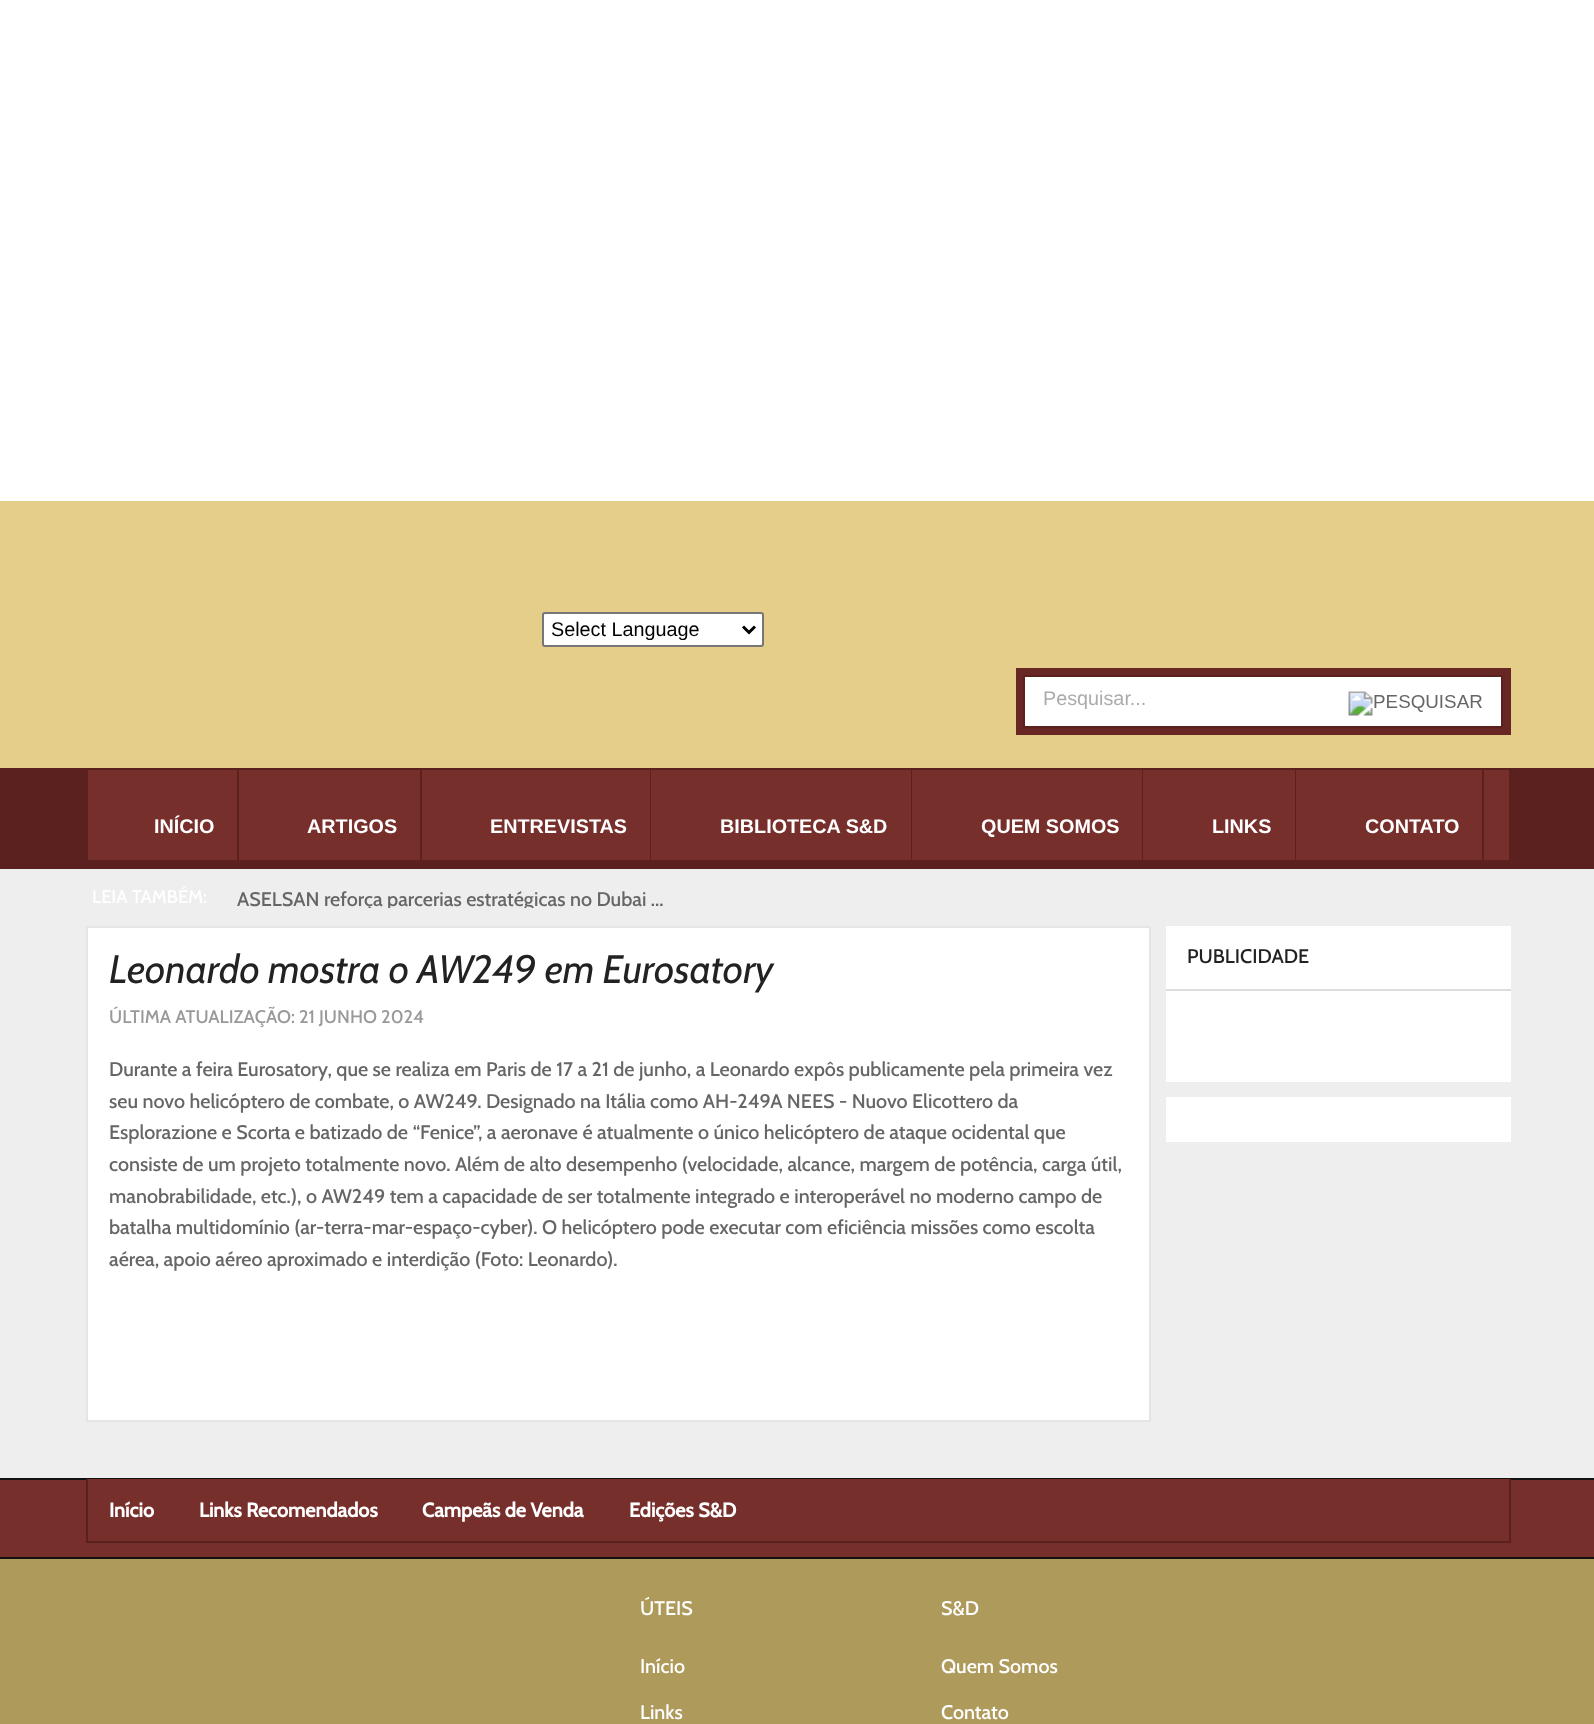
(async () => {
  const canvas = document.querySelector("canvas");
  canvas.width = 1594;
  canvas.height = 1724;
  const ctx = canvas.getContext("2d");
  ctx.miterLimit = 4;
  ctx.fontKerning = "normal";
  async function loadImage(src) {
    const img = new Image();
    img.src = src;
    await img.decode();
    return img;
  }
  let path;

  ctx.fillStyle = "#eeeeee";
  ctx.fillRect(0, 0, 1594, 1724);
  ctx.fillStyle = "#ffffff";
  ctx.fillRect(0, 0, 1594, 501);
  ctx.fillStyle = "#e5ce8a";
  ctx.fillRect(0, 501, 1594, 267);
  ctx.fillStyle = "#ffffff";
  ctx.beginPath();
  ctx.roundRect(543, 613, 220, 33, 2);
  ctx.fill();
  ctx.strokeStyle = "#767676";
  ctx.lineWidth = 2;
  ctx.stroke();
  path = new Path2D("M743 626.5L749 632.5L755 626.5");
  ctx.strokeStyle = "#000000";
  ctx.lineWidth = 3;
  ctx.stroke(path);
  ctx.fillStyle = "#682725";
  ctx.fillRect(1016, 668, 495, 67);
  ctx.fillStyle = "#ffffff";
  ctx.beginPath();
  ctx.rect(1024, 676, 478, 51);
  ctx.fill();
  ctx.strokeStyle = "#5b211f";
  ctx.lineWidth = 2;
  ctx.stroke();
  ctx.drawImage(await loadImage("img/1.png"), 1348, 691, 134, 25);
  for (const [x, y, w, h, color] of [
    [0, 768, 1594, 101, "#5b211f"],
    [88, 770, 1421, 90, "#772f2c"],
    [237, 770, 2, 90, "#5b211f"],
    [420, 770, 2, 90, "#5b211f"],
    [650, 770, 1, 90, "#5b211f"],
    [911, 770, 1, 90, "#5b211f"],
    [1142, 770, 1, 90, "#5b211f"],
    [1295, 770, 1, 90, "#5b211f"],
    [1482, 770, 2, 90, "#5b211f"],
  ]) {
    ctx.fillStyle = color;
    ctx.fillRect(x, y, w, h);
  }
  ctx.fillStyle = "#ffffff";
  ctx.beginPath();
  ctx.rect(87, 927, 1063, 494);
  ctx.fill();
  ctx.strokeStyle = "#e5e5e5";
  ctx.stroke();
  for (const [x, y, w, h, color] of [
    [1166, 926, 345, 156, "#ffffff"],
    [1166, 989, 345, 2, "#dddddd"],
    [1166, 1097, 345, 45, "#ffffff"],
    [0, 1480, 1594, 77, "#772f2c"],
    [0, 1478, 1594, 2, "#111111"],
    [88, 1479, 1421, 1, "#772f2c"],
    [1509, 1479, 2, 63, "#5b211f"],
    [86, 1541, 1425, 2, "#5b211f"],
    [86, 1479, 2, 63, "#5b211f"],
    [0, 1559, 1594, 165, "#ae9a5b"],
    [0, 1557, 1594, 2, "#111111"],
  ]) {
    ctx.fillStyle = color;
    ctx.fillRect(x, y, w, h);
  }
  ctx.font = "19.8px Liberation Sans";
  ctx.fillStyle = "#000000";
  ctx.fillText("Select Language", 551, 636);
  ctx.fillStyle = "#ababab";
  ctx.fillText("Pesquisar...", 1043, 705);
  ctx.font = "bold 19.8px Liberation Sans";
  ctx.fillStyle = "#ffffff";
  for (const [text, x, y] of [
    ["INÍCIO", 154, 833],
    ["ARTIGOS", 307, 833],
    ["ENTREVISTAS", 490, 833],
    ["BIBLIOTECA S&D", 720, 833],
    ["QUEM SOMOS", 981, 833],
    ["LINKS", 1212, 833],
    ["CONTATO", 1365, 833],
  ]) {
    ctx.fillText(text, x, y);
  }
  ctx.font = "500 18.25px Cabin";
  ctx.fillText("LEIA TAMBÉM:", 92, 903);
  ctx.save();
  ctx.beginPath();
  ctx.rect(237, 884, 1274, 24);
  ctx.clip();
  ctx.font = "500 19.8px Cabin";
  ctx.fillStyle = "#666666";
  ctx.fillText("ASELSAN reforça parcerias estratégicas no Dubai ...", 237, 906);
  ctx.restore();
  ctx.font = "italic 39.6px Cabin";
  ctx.fillStyle = "#222222";
  ctx.fillText("Leonardo mostra o AW249 em Eurosatory", 109, 983);
  ctx.font = "500 18.25px Cabin";
  ctx.fillStyle = "#999999";
  ctx.fillText("ÚLTIMA ATUALIZAÇÃO: 21 JUNHO 2024", 109, 1023);
  ctx.font = "500 19.8px Cabin";
  ctx.fillStyle = "#666666";
  for (const [text, x, y] of [
    ["Durante a feira Eurosatory, que se realiza em Paris de 17 a 21 de junho, a Leonardo expôs publicamente pela primeira vez", 109, 1076],
    ["seu novo helicóptero de combate, o AW249. Designado na Itália como AH-249A NEES - Nuovo Elicottero da", 109, 1108],
    ["Esplorazione e Scorta e batizado de “Fenice”, a aeronave é atualmente o único helicóptero de ataque ocidental que", 109, 1139],
    ["consiste de um projeto totalmente novo. Além de alto desempenho (velocidade, alcance, margem de potência, carga útil,", 109, 1171],
    ["manobrabilidade, etc.), o AW249 tem a capacidade de ser totalmente integrado e interoperável no moderno campo de", 109, 1203],
    ["batalha multidomínio (ar-terra-mar-espaço-cyber). O helicóptero pode executar com eficiência missões como escolta", 109, 1234],
    ["aérea, apoio aéreo aproximado e interdição (Foto: Leonardo).", 109, 1266],
  ]) {
    ctx.fillText(text, x, y);
  }
  ctx.fillStyle = "#222222";
  ctx.fillText("PUBLICIDADE", 1187, 963);
  ctx.font = "bold 19.8px Cabin";
  ctx.fillStyle = "#ffffff";
  for (const [text, x, y] of [
    ["Início", 109, 1517],
    ["Links Recomendados", 199, 1517],
    ["Campeãs de Venda", 422, 1517],
    ["Edições S&D", 629, 1517],
  ]) {
    ctx.fillText(text, x, y);
  }
  ctx.font = "500 19.8px Cabin";
  for (const [text, x, y] of [
    ["ÚTEIS", 640, 1615],
    ["Início", 640, 1673],
    ["Links", 640, 1719],
    ["S&D", 941, 1615],
    ["Quem Somos", 941, 1673],
    ["Contato", 941, 1719],
  ]) {
    ctx.fillText(text, x, y);
  }
})();
